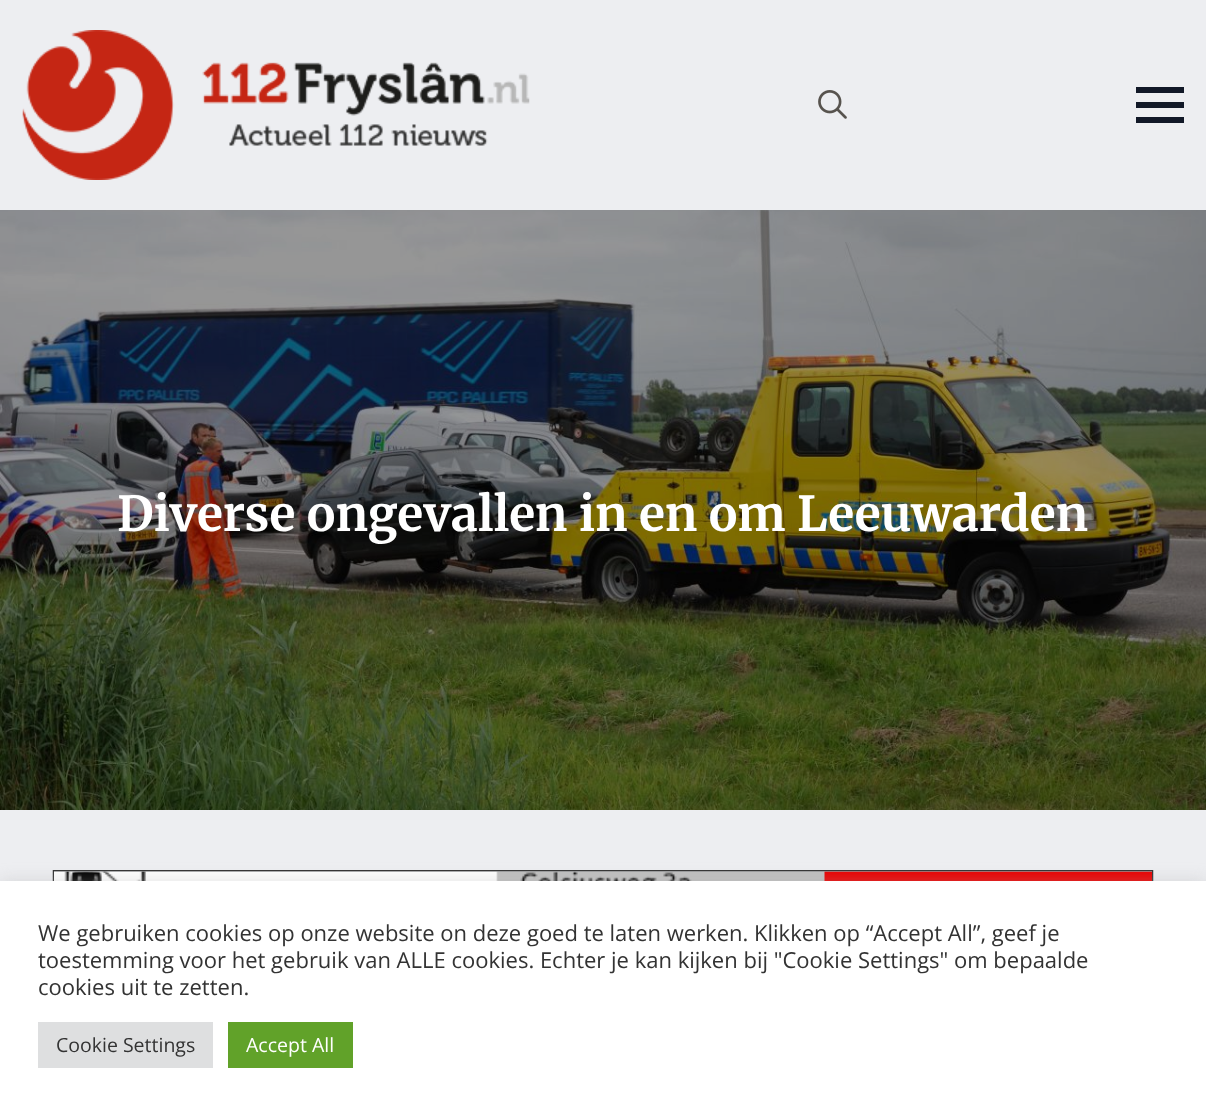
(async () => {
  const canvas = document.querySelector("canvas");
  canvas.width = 1206;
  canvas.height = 1113;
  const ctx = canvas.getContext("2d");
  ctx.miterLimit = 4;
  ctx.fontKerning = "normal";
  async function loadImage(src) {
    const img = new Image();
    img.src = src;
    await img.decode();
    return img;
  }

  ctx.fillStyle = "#edeef1";
  ctx.fillRect(0, 0, 1206, 1113);
  ctx.drawImage(await loadImage("img/1.png"), 22, 30, 508, 150);
  ctx.drawImage(await loadImage("img/2.png"), 818, 90, 29, 29);
  for (const [x, y, w, h, color] of [
    [1136, 102, 48, 6, "#111827"],
    [1136, 87, 48, 6, "#111827"],
    [1136, 117, 48, 6, "#111827"],
  ]) {
    ctx.fillStyle = color;
    ctx.fillRect(x, y, w, h);
  }
  ctx.drawImage(await loadImage("img/3.png"), 0, 210, 1206, 600);
  ctx.drawImage(await loadImage("img/4.png"), 52, 870, 1102, 11);
  ctx.fillStyle = "rgba(172, 171, 171, 0.3)";
  ctx.filter = "blur(7.5px)";
  ctx.beginPath();
  ctx.rect(0, 879, 1206, 233);
  ctx.fill();
  ctx.filter = "none";
  for (const [x, y, w, h, color] of [
    [0, 881, 1206, 232, "#ffffff"],
    [38, 1022, 175, 46, "#dedfe0"],
    [228, 1022, 125, 46, "#61a229"],
  ]) {
    ctx.fillStyle = color;
    ctx.fillRect(x, y, w, h);
  }
  ctx.font = "bold 48px Merriweather";
  ctx.fillStyle = "#ffffff";
  ctx.fillText("Diverse ongevallen in en om Leeuwarden", 117, 531);
  ctx.font = "22px Open Sans";
  ctx.fillStyle = "#333333";
  for (const [text, x, y] of [
    ["We gebruiken cookies op onze website on deze goed te laten werken. Klikken op “Accept All”, geef je", 38, 941],
    ["toestemming voor het gebruik van ALLE cookies. Echter je kan kijken bij \"Cookie Settings\" om bepaalde", 38, 968],
    ["cookies uit te zetten.", 38, 995],
  ]) {
    ctx.fillText(text, x, y);
  }
  ctx.font = "19.5px Open Sans";
  ctx.fillText("Cookie Settings", 56, 1052);
  ctx.fillStyle = "#ffffff";
  ctx.fillText("Accept All", 246, 1052);
})();
